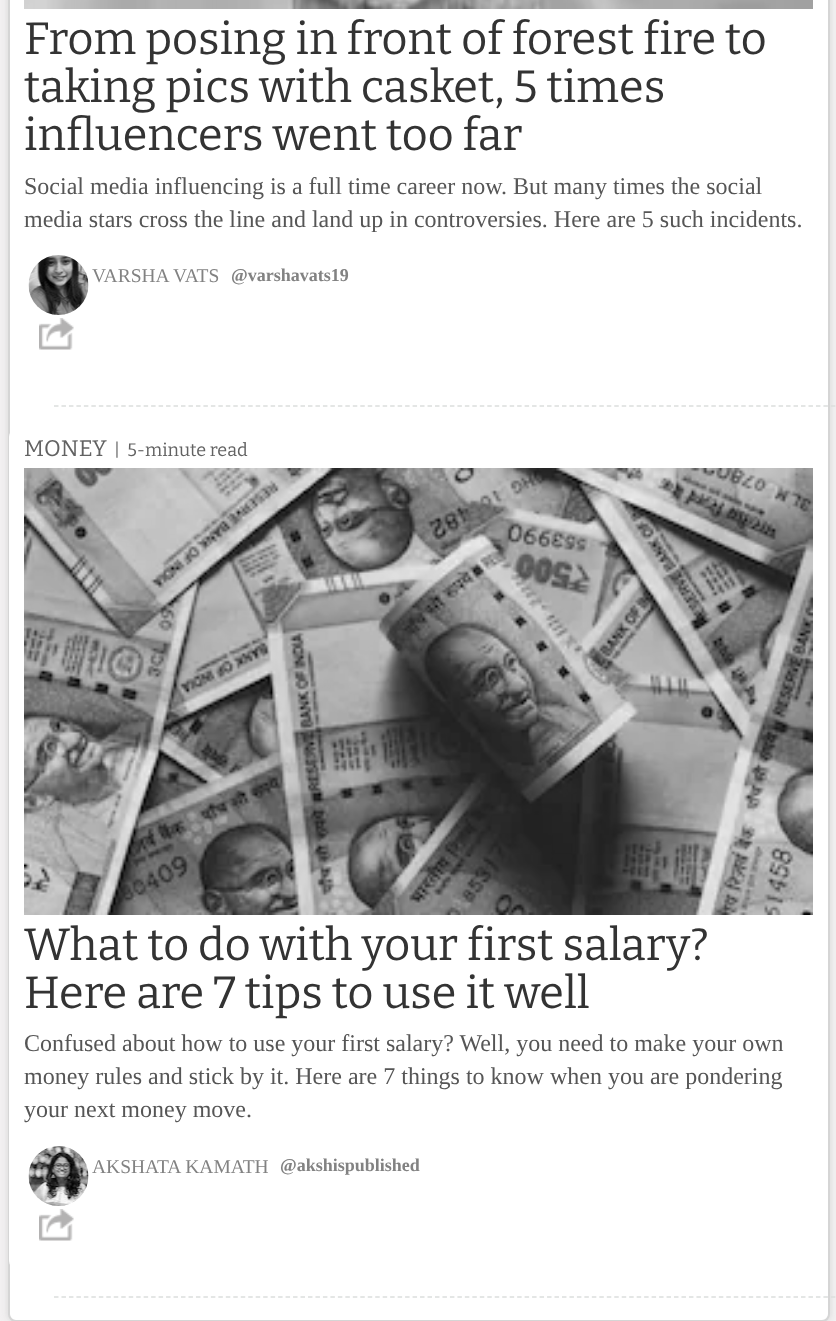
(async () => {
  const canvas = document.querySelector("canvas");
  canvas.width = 836;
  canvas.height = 1321;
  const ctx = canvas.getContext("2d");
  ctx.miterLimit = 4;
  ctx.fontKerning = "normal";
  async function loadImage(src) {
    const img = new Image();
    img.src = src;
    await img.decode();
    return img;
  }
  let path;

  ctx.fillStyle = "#f2f0f1";
  ctx.fillRect(0, 0, 836, 1321);
  ctx.fillStyle = "#d5d5d5";
  ctx.filter = "blur(3px)";
  ctx.beginPath();
  ctx.roundRect(8, -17, 822, 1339, 8);
  ctx.fill();
  ctx.filter = "none";
  ctx.fillStyle = "#ffffff";
  ctx.beginPath();
  ctx.roundRect(9, -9, 820, 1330, 7);
  ctx.fill();
  ctx.strokeStyle = "#d5d5d5";
  ctx.lineWidth = 2;
  ctx.stroke();
  ctx.drawImage(await loadImage("img/1.png"), 24, 0, 789, 9);
  ctx.drawImage(await loadImage("img/2.png"), 28, 255, 61, 60);
  ctx.drawImage(await loadImage("img/3.png"), 39, 318, 35, 32);
  path = new Path2D("M54 406H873");
  ctx.strokeStyle = "#dcdedd";
  ctx.lineWidth = 1.5;
  ctx.setLineDash([4.5, 2.97]);
  ctx.stroke(path);
  ctx.beginPath();
  ctx.roundRect(9, 429, 819, 840, 8);
  ctx.fill();
  ctx.drawImage(await loadImage("img/4.png"), 24, 468, 789, 447);
  ctx.drawImage(await loadImage("img/5.png"), 28, 1146, 61, 60);
  ctx.drawImage(await loadImage("img/3.png"), 39, 1209, 35, 32);
  path = new Path2D("M54 1297H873");
  ctx.stroke(path);
  ctx.font = "45px Bitter";
  ctx.fillStyle = "#333333";
  for (const [text, x, y] of [
    ["From posing in front of forest fire to", 24, 54],
    ["taking pics with casket, 5 times", 24, 102],
    ["influencers went too far", 24, 150],
  ]) {
    ctx.fillText(text, x, y);
  }
  ctx.font = "24px Liberation Serif";
  ctx.fillStyle = "#565656";
  ctx.fillText("Social media influencing is a full time career now. But many times the social", 24, 194);
  ctx.fillText("media stars cross the line and land up in controversies. Here are 5 such incidents.", 24, 227);
  ctx.font = "19.5px Liberation Serif";
  ctx.fillStyle = "#828282";
  ctx.fillText("VARSHA VATS", 92, 282);
  ctx.font = "bold 18px Liberation Serif";
  ctx.fillText("@varshavats19", 231, 281);
  ctx.font = "22.5px Bitter";
  ctx.fillStyle = "#626262";
  ctx.fillText("MONEY", 24, 456);
  ctx.font = "18px Bitter";
  ctx.fillText("|  5-minute read", 114, 456);
  ctx.font = "45px Bitter";
  ctx.fillStyle = "#333333";
  ctx.fillText("What to do with your first salary?", 24, 960);
  ctx.fillText("Here are 7 tips to use it well", 24, 1008);
  ctx.font = "24px Liberation Serif";
  ctx.fillStyle = "#565656";
  for (const [text, x, y] of [
    ["Confused about how to use your first salary? Well, you need to make your own", 24, 1051],
    ["money rules and stick by it. Here are 7 things to know when you are pondering", 24, 1084],
    ["your next money move.", 24, 1117],
  ]) {
    ctx.fillText(text, x, y);
  }
  ctx.font = "19.5px Liberation Serif";
  ctx.fillStyle = "#828282";
  ctx.fillText("AKSHATA KAMATH", 92, 1173);
  ctx.font = "bold 18px Liberation Serif";
  ctx.fillText("@akshispublished", 280, 1171);
})();
